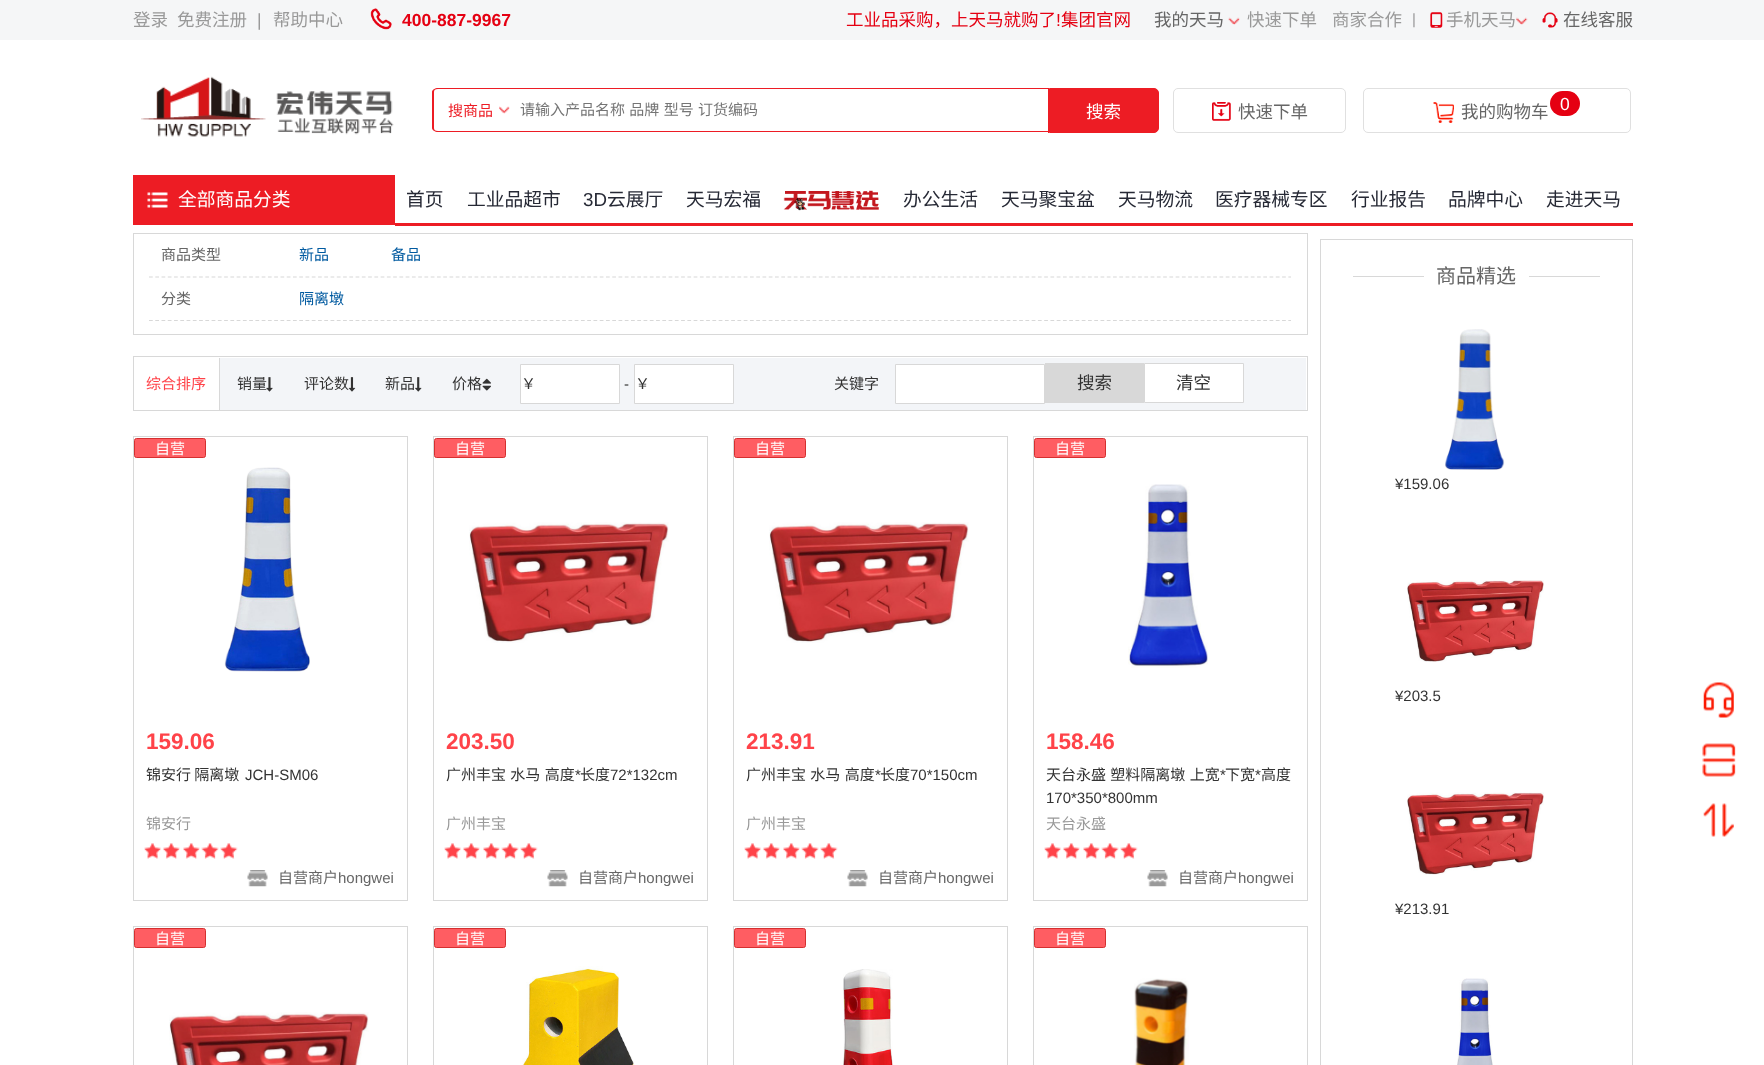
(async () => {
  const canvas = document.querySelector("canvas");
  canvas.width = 1764;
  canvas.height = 1065;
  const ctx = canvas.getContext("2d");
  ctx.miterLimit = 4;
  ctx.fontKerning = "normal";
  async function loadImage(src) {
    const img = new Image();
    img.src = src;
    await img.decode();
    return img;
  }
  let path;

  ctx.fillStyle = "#ffffff";
  ctx.fillRect(0, 0, 1764, 1065);
  ctx.fillStyle = "#f5f6f7";
  ctx.fillRect(0, 0, 1764, 40);
  ctx.drawImage(await loadImage("img/1.png"), 370, 8, 22, 22);
  ctx.drawImage(await loadImage("img/2.png"), 1228, 17, 12, 8);
  ctx.drawImage(await loadImage("img/3.png"), 1430, 12, 13, 16);
  ctx.drawImage(await loadImage("img/4.png"), 1516, 17, 12, 8);
  ctx.drawImage(await loadImage("img/5.png"), 1542, 12, 16, 16);
  ctx.drawImage(await loadImage("img/6.png"), 141, 76, 253, 61);
  ctx.fillStyle = "#ed1c24";
  path = new Path2D("M438 88H508V132H438C435 132 432 130 432 128V92C432 90 435 88 438 88ZM438 89H508V131H438C435 131 434 130 434 128V92C434 90 435 89 438 89Z");
  ctx.fill(path, "evenodd");
  ctx.drawImage(await loadImage("img/7.png"), 499, 106, 11, 8);
  for (const [x, y, w, h, color] of [
    [508, 88, 541, 1, "#ed1c24"],
    [1048, 88, 1, 45, "#ed1c24"],
    [508, 131, 541, 1, "#ed1c24"],
  ]) {
    ctx.fillStyle = color;
    ctx.fillRect(x, y, w, h);
  }
  ctx.beginPath();
  ctx.roundRect(1049.5, 88.5, 109, 44, [0, 4.5, 4.5, 0]);
  ctx.fill();
  ctx.strokeStyle = "#ed1c24";
  ctx.stroke();
  ctx.beginPath();
  ctx.roundRect(1173.5, 88.5, 172, 44, 4.5);
  ctx.strokeStyle = "#e0e0e0";
  ctx.stroke();
  ctx.drawImage(await loadImage("img/8.png"), 1212, 102, 19, 19);
  ctx.beginPath();
  ctx.roundRect(1363.5, 88.5, 267, 44, 4.5);
  ctx.stroke();
  ctx.drawImage(await loadImage("img/9.png"), 1433, 102, 21, 21);
  ctx.fillStyle = "#e50012";
  ctx.beginPath();
  ctx.roundRect(1550, 91, 30, 25, 12.5);
  ctx.fill();
  ctx.fillStyle = "#ed1c24";
  ctx.fillRect(133, 175, 262, 50);
  ctx.drawImage(await loadImage("img/10.png"), 147, 192, 21, 16);
  ctx.drawImage(await loadImage("img/11.png"), 783, 190, 96, 21);
  ctx.fillRect(395, 223, 1238, 3);
  ctx.strokeStyle = "#d8d8d8";
  ctx.strokeRect(133.5, 233.5, 1174, 101);
  path = new Path2D("M149 277H1291");
  ctx.lineWidth = 1.2;
  ctx.setLineDash([3.75, 2.51]);
  ctx.stroke(path);
  path = new Path2D("M149 320.5H1291");
  ctx.stroke(path);
  ctx.fillStyle = "#ffffff";
  ctx.fillRect(287, 319, 1004, 1);
  ctx.fillStyle = "#f3f5f8";
  ctx.fillRect(220, 358, 1086, 52);
  ctx.lineWidth = 1;
  ctx.setLineDash([]);
  ctx.strokeRect(133.5, 356.5, 1174, 54);
  ctx.fillStyle = "#d8d8d8";
  ctx.fillRect(219, 358, 1, 52);
  ctx.drawImage(await loadImage("img/14.png"), 415, 377, 7, 15);
  ctx.drawImage(await loadImage("img/15.png"), 482, 378, 9, 13);
  ctx.fillStyle = "#ffffff";
  ctx.beginPath();
  ctx.rect(520.5, 364.5, 99, 39);
  ctx.fill();
  ctx.stroke();
  ctx.beginPath();
  ctx.rect(634.5, 364.5, 99, 39);
  ctx.fill();
  ctx.stroke();
  ctx.beginPath();
  ctx.rect(895.5, 364.5, 149, 39);
  ctx.fill();
  ctx.stroke();
  ctx.fillStyle = "#d8d8d8";
  ctx.fillRect(1045, 363, 99, 40);
  ctx.fillStyle = "#ffffff";
  ctx.beginPath();
  ctx.rect(1144.5, 363.5, 99, 39);
  ctx.fill();
  ctx.stroke();
  ctx.strokeRect(133.5, 436.5, 274, 464);
  ctx.fillStyle = "#ff5d62";
  ctx.beginPath();
  ctx.roundRect(134.5, 438.5, 71, 19, 2);
  ctx.fill();
  ctx.strokeStyle = "#d43030";
  ctx.stroke();
  ctx.drawImage(await loadImage("img/16.png"), 247, 870, 21, 17);
  ctx.drawImage(await loadImage("img/17.png"), 144, 843, 17, 16);
  ctx.drawImage(await loadImage("img/18.png"), 163, 843, 17, 16);
  ctx.drawImage(await loadImage("img/18.png"), 183, 843, 17, 16);
  ctx.drawImage(await loadImage("img/19.png"), 201, 843, 18, 16);
  ctx.drawImage(await loadImage("img/20.png"), 220, 843, 18, 16);
  ctx.drawImage(await loadImage("img/21.png"), 224, 467, 86, 205);
  ctx.strokeStyle = "#d8d8d8";
  ctx.strokeRect(433.5, 436.5, 274, 464);
  ctx.beginPath();
  ctx.roundRect(434.5, 438.5, 71, 19, 2);
  ctx.fill();
  ctx.strokeStyle = "#d43030";
  ctx.stroke();
  ctx.drawImage(await loadImage("img/16.png"), 547, 870, 21, 17);
  ctx.drawImage(await loadImage("img/22.png"), 444, 843, 17, 16);
  ctx.drawImage(await loadImage("img/18.png"), 463, 843, 17, 16);
  ctx.drawImage(await loadImage("img/18.png"), 483, 843, 17, 16);
  ctx.drawImage(await loadImage("img/19.png"), 501, 843, 18, 16);
  ctx.drawImage(await loadImage("img/23.png"), 520, 843, 18, 16);
  ctx.drawImage(await loadImage("img/24.png"), 469, 522, 200, 121);
  ctx.strokeStyle = "#d8d8d8";
  ctx.strokeRect(733.5, 436.5, 274, 464);
  ctx.beginPath();
  ctx.roundRect(734.5, 438.5, 71, 19, 2);
  ctx.fill();
  ctx.strokeStyle = "#d43030";
  ctx.stroke();
  ctx.drawImage(await loadImage("img/16.png"), 847, 870, 21, 17);
  ctx.drawImage(await loadImage("img/17.png"), 744, 843, 17, 16);
  ctx.drawImage(await loadImage("img/18.png"), 763, 843, 17, 16);
  ctx.drawImage(await loadImage("img/18.png"), 783, 843, 17, 16);
  ctx.drawImage(await loadImage("img/19.png"), 801, 843, 18, 16);
  ctx.drawImage(await loadImage("img/23.png"), 820, 843, 18, 16);
  ctx.drawImage(await loadImage("img/24.png"), 769, 522, 200, 121);
  ctx.strokeStyle = "#d8d8d8";
  ctx.strokeRect(1033.5, 436.5, 274, 464);
  ctx.beginPath();
  ctx.roundRect(1034.5, 438.5, 71, 19, 2);
  ctx.fill();
  ctx.strokeStyle = "#d43030";
  ctx.stroke();
  ctx.drawImage(await loadImage("img/25.png"), 1147, 870, 21, 17);
  ctx.drawImage(await loadImage("img/22.png"), 1044, 843, 17, 16);
  ctx.drawImage(await loadImage("img/26.png"), 1063, 843, 17, 16);
  ctx.drawImage(await loadImage("img/26.png"), 1083, 843, 17, 16);
  ctx.drawImage(await loadImage("img/19.png"), 1101, 843, 18, 16);
  ctx.drawImage(await loadImage("img/23.png"), 1120, 843, 18, 16);
  ctx.drawImage(await loadImage("img/27.png"), 1128, 484, 80, 184);
  ctx.strokeStyle = "#d8d8d8";
  ctx.strokeRect(133.5, 926.5, 274, 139);
  ctx.beginPath();
  ctx.roundRect(134.5, 928.5, 71, 19, 2);
  ctx.fill();
  ctx.strokeStyle = "#d43030";
  ctx.stroke();
  ctx.drawImage(await loadImage("img/28.png"), 169, 1012, 200, 53);
  ctx.strokeStyle = "#d8d8d8";
  ctx.strokeRect(433.5, 926.5, 274, 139);
  ctx.beginPath();
  ctx.roundRect(434.5, 928.5, 71, 19, 2);
  ctx.fill();
  ctx.strokeStyle = "#d43030";
  ctx.stroke();
  ctx.drawImage(await loadImage("img/29.png"), 522, 966, 113, 99);
  ctx.strokeStyle = "#d8d8d8";
  ctx.strokeRect(733.5, 926.5, 274, 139);
  ctx.beginPath();
  ctx.roundRect(734.5, 928.5, 71, 19, 2);
  ctx.fill();
  ctx.strokeStyle = "#d43030";
  ctx.stroke();
  ctx.drawImage(await loadImage("img/30.png"), 843, 969, 50, 96);
  ctx.strokeStyle = "#d8d8d8";
  ctx.strokeRect(1033.5, 926.5, 274, 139);
  ctx.beginPath();
  ctx.roundRect(1034.5, 928.5, 71, 19, 2);
  ctx.fill();
  ctx.strokeStyle = "#d43030";
  ctx.stroke();
  ctx.drawImage(await loadImage("img/31.png"), 1134, 978, 55, 87);
  ctx.strokeStyle = "#d8d8d8";
  ctx.strokeRect(1320.5, 239.5, 312, 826);
  ctx.fillStyle = "#d8d8d8";
  ctx.fillRect(1353, 276, 247, 1);
  ctx.fillStyle = "#ffffff";
  ctx.fillRect(1424, 276, 105, 1);
  ctx.drawImage(await loadImage("img/32.png"), 1445, 329, 60, 141);
  ctx.drawImage(await loadImage("img/33.png"), 1407, 580, 137, 82);
  ctx.drawImage(await loadImage("img/34.png"), 1407, 792, 137, 83);
  ctx.drawImage(await loadImage("img/35.png"), 1457, 978, 36, 87);
  ctx.drawImage(await loadImage("img/36.png"), 1703, 682, 31, 36);
  ctx.drawImage(await loadImage("img/37.png"), 1702, 743, 34, 34);
  ctx.drawImage(await loadImage("img/38.png"), 1703, 803, 31, 34);
  ctx.font = "17.5px Noto Sans CJK SC";
  ctx.fillStyle = "#999999";
  ctx.fillText("登录", 133, 26);
  ctx.fillText("免费注册", 177, 26);
  ctx.font = "17.5px Liberation Sans";
  ctx.fillText("|", 257, 26);
  ctx.font = "17.5px Noto Sans CJK SC";
  ctx.fillText("帮助中心", 273, 26);
  ctx.font = "bold 17.5px Liberation Sans";
  ctx.fillStyle = "#e50012";
  ctx.fillText("400-887-9967", 402, 26);
  ctx.font = "17.5px Noto Sans CJK SC";
  ctx.fillText("工业品采购，上天马就购了", 846, 26);
  ctx.font = "17.5px Liberation Sans";
  ctx.fillText("!", 1056, 26);
  ctx.font = "17.5px Noto Sans CJK SC";
  ctx.fillText("集团官网", 1061, 26);
  ctx.fillStyle = "#666666";
  ctx.fillText("我的天马", 1154, 26);
  ctx.fillStyle = "#999999";
  ctx.fillText("快速下单", 1247, 26);
  ctx.fillText("商家合作", 1332, 26);
  ctx.font = "15px Liberation Sans";
  ctx.fillText("|", 1412, 24);
  ctx.font = "17.5px Noto Sans CJK SC";
  ctx.fillText("手机天马", 1446, 26);
  ctx.fillStyle = "#666666";
  ctx.fillText("在线客服", 1563, 26);
  ctx.font = "15px Noto Sans CJK SC";
  ctx.fillStyle = "#ed1c24";
  ctx.fillText("搜商品", 448, 116);
  ctx.wordSpacing = "1px";
  ctx.fillStyle = "#757575";
  ctx.fillText("请输入产品名称 品牌 型号 订货编码", 520, 115);
  ctx.wordSpacing = "0px";
  ctx.font = "17.5px Noto Sans CJK SC";
  ctx.fillStyle = "#ffffff";
  ctx.fillText("搜索", 1086, 118);
  ctx.fillStyle = "#666666";
  ctx.fillText("快速下单", 1238, 118);
  ctx.fillText("我的购物车", 1461, 118);
  ctx.font = "17.5px Liberation Sans";
  ctx.fillStyle = "#ffffff";
  ctx.fillText("0", 1560, 110);
  ctx.font = "18.75px Noto Sans CJK SC";
  ctx.fillText("全部商品分类", 178, 206);
  ctx.fillStyle = "#262935";
  ctx.fillText("首页", 406, 206);
  ctx.fillText("工业品超市", 467, 206);
  ctx.font = "18.75px Liberation Sans";
  ctx.fillText("3D", 583, 206);
  ctx.font = "18.75px Noto Sans CJK SC";
  for (const [text, x, y] of [
    ["云展厅", 607, 206],
    ["天马宏福", 686, 206],
    ["办公生活", 903, 206],
    ["天马聚宝盆", 1001, 206],
    ["天马物流", 1118, 206],
    ["医疗器械专区", 1215, 206],
    ["行业报告", 1351, 206],
    ["品牌中心", 1448, 206],
    ["走进天马", 1546, 206],
  ]) {
    ctx.fillText(text, x, y);
  }
  ctx.font = "15px Noto Sans CJK SC";
  ctx.fillStyle = "#666666";
  ctx.fillText("商品类型", 161, 260);
  ctx.fillStyle = "#005aa0";
  ctx.fillText("新品", 299, 260);
  ctx.fillText("备品", 391, 260);
  ctx.fillStyle = "#666666";
  ctx.fillText("分类", 161, 304);
  ctx.fillStyle = "#005aa0";
  ctx.fillText("隔离墩", 299, 304);
  ctx.fillStyle = "#ff4349";
  ctx.fillText("综合排序", 146, 389);
  ctx.fillStyle = "#333333";
  ctx.fillText("销量", 237, 389);
  ctx.drawImage(await loadImage("img/12.png"), 266, 377, 7, 15);
  ctx.fillText("评论数", 304, 389);
  ctx.drawImage(await loadImage("img/13.png"), 348, 377, 8, 15);
  for (const [text, x, y] of [
    ["新品", 385, 389],
    ["价格", 452, 389],
    ["￥", 521, 389],
  ]) {
    ctx.fillText(text, x, y);
  }
  ctx.font = "15px Liberation Sans";
  ctx.fillText("-", 624, 389);
  ctx.font = "15px Noto Sans CJK SC";
  ctx.fillText("￥", 635, 389);
  ctx.fillText("关键字", 834, 389);
  ctx.font = "17.5px Noto Sans CJK SC";
  ctx.fillText("搜索", 1077, 389);
  ctx.fillText("清空", 1176, 389);
  ctx.font = "15px Noto Sans CJK SC";
  ctx.fillStyle = "#ffffff";
  ctx.fillText("自营", 155, 454);
  ctx.fillStyle = "#666666";
  ctx.fillText("自营商户", 278, 883);
  ctx.font = "15px Liberation Sans";
  ctx.fillText("hongwei", 338, 883);
  ctx.font = "bold 22.5px Liberation Sans";
  ctx.fillStyle = "#ff4349";
  ctx.fillText("159.06", 146, 749);
  ctx.font = "15px Noto Sans CJK SC";
  ctx.fillStyle = "#333333";
  ctx.fillText("锦安行 隔离墩", 146, 780);
  ctx.font = "15px Liberation Sans";
  ctx.fillText("JCH-SM06", 245, 780);
  ctx.font = "15px Noto Sans CJK SC";
  ctx.fillStyle = "#999999";
  ctx.fillText("锦安行", 146, 829);
  ctx.fillStyle = "#ffffff";
  ctx.fillText("自营", 455, 454);
  ctx.fillStyle = "#666666";
  ctx.fillText("自营商户", 578, 883);
  ctx.font = "15px Liberation Sans";
  ctx.fillText("hongwei", 638, 883);
  ctx.font = "bold 22.5px Liberation Sans";
  ctx.fillStyle = "#ff4349";
  ctx.fillText("203.50", 446, 749);
  ctx.wordSpacing = "1px";
  ctx.font = "15px Noto Sans CJK SC";
  ctx.fillStyle = "#333333";
  ctx.fillText("广州丰宝 水马 高度", 446, 780);
  ctx.wordSpacing = "0px";
  ctx.font = "15px Liberation Sans";
  ctx.fillText("*", 575, 780);
  ctx.font = "15px Noto Sans CJK SC";
  ctx.fillText("长度", 580, 780);
  ctx.font = "15px Liberation Sans";
  ctx.fillText("72*132cm", 610, 780);
  ctx.font = "15px Noto Sans CJK SC";
  ctx.fillStyle = "#999999";
  ctx.fillText("广州丰宝", 446, 829);
  ctx.fillStyle = "#ffffff";
  ctx.fillText("自营", 755, 454);
  ctx.fillStyle = "#666666";
  ctx.fillText("自营商户", 878, 883);
  ctx.font = "15px Liberation Sans";
  ctx.fillText("hongwei", 938, 883);
  ctx.font = "bold 22.5px Liberation Sans";
  ctx.fillStyle = "#ff4349";
  ctx.fillText("213.91", 746, 749);
  ctx.wordSpacing = "1px";
  ctx.font = "15px Noto Sans CJK SC";
  ctx.fillStyle = "#333333";
  ctx.fillText("广州丰宝 水马 高度", 746, 780);
  ctx.wordSpacing = "0px";
  ctx.font = "15px Liberation Sans";
  ctx.fillText("*", 875, 780);
  ctx.font = "15px Noto Sans CJK SC";
  ctx.fillText("长度", 880, 780);
  ctx.font = "15px Liberation Sans";
  ctx.fillText("70*150cm", 910, 780);
  ctx.font = "15px Noto Sans CJK SC";
  ctx.fillStyle = "#999999";
  ctx.fillText("广州丰宝", 746, 829);
  ctx.fillStyle = "#ffffff";
  ctx.fillText("自营", 1055, 454);
  ctx.fillStyle = "#666666";
  ctx.fillText("自营商户", 1178, 883);
  ctx.font = "15px Liberation Sans";
  ctx.fillText("hongwei", 1238, 883);
  ctx.font = "bold 22.5px Liberation Sans";
  ctx.fillStyle = "#ff4349";
  ctx.fillText("158.46", 1046, 749);
  ctx.wordSpacing = "1px";
  ctx.font = "15px Noto Sans CJK SC";
  ctx.fillStyle = "#333333";
  ctx.fillText("天台永盛 塑料隔离墩 上宽", 1046, 780);
  ctx.wordSpacing = "0px";
  ctx.font = "15px Liberation Sans";
  ctx.fillText("*", 1220, 780);
  ctx.font = "15px Noto Sans CJK SC";
  ctx.fillText("下宽", 1225, 780);
  ctx.font = "15px Liberation Sans";
  ctx.fillText("*", 1255, 780);
  ctx.font = "15px Noto Sans CJK SC";
  ctx.fillText("高度", 1261, 780);
  ctx.font = "15px Liberation Sans";
  ctx.fillText("170*350*800mm", 1046, 803);
  ctx.font = "15px Noto Sans CJK SC";
  ctx.fillStyle = "#999999";
  ctx.fillText("天台永盛", 1046, 829);
  ctx.fillStyle = "#ffffff";
  for (const [text, x, y] of [
    ["自营", 155, 944],
    ["自营", 455, 944],
    ["自营", 755, 944],
    ["自营", 1055, 944],
  ]) {
    ctx.fillText(text, x, y);
  }
  ctx.font = "20px Noto Sans CJK SC";
  ctx.fillStyle = "#666666";
  ctx.fillText("商品精选", 1436, 283);
  ctx.font = "15px Liberation Sans";
  ctx.fillStyle = "#333333";
  for (const [text, x, y] of [
    ["¥159.06", 1395, 489],
    ["¥203.5", 1395, 701],
    ["¥213.91", 1395, 914],
  ]) {
    ctx.fillText(text, x, y);
  }
})();
